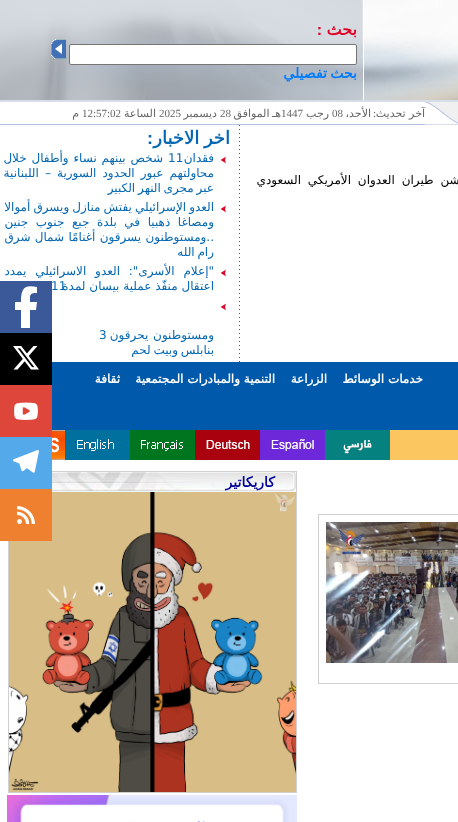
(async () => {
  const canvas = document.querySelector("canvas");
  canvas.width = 458;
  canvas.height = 822;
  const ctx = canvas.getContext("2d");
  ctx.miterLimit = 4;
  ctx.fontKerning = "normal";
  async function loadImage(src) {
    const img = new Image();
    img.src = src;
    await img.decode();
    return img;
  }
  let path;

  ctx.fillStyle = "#ffffff";
  ctx.fillRect(0, 0, 458, 822);
  ctx.drawImage(await loadImage("img/1.png"), 364, 0, 94, 100);
  ctx.drawImage(await loadImage("img/2.png"), 0, 0, 363, 100);
  ctx.beginPath();
  ctx.roundRect(69.5, 44.5, 287, 20, 1.5);
  ctx.fill();
  ctx.strokeStyle = "#767676";
  ctx.stroke();
  ctx.drawImage(await loadImage("img/3.png"), 51, 39, 15, 20);
  ctx.fillStyle = "#d7deea";
  ctx.fillRect(0, 100, 458, 2);
  ctx.drawImage(await loadImage("img/4.png"), 425, 102, 33, 23);
  ctx.fillStyle = "#b2c2e0";
  ctx.fillRect(0, 124, 425, 1);
  ctx.drawImage(await loadImage("img/5.png"), 239, 125, 1, 237);
  ctx.drawImage(await loadImage("img/6.png"), 220, 156, 6, 8);
  ctx.drawImage(await loadImage("img/6.png"), 220, 205, 6, 8);
  ctx.drawImage(await loadImage("img/6.png"), 220, 269, 6, 8);
  ctx.drawImage(await loadImage("img/6.png"), 220, 303, 6, 8);
  ctx.fillStyle = "#0059ab";
  ctx.fillRect(52, 362, 406, 68);
  ctx.fillStyle = "#fbc660";
  ctx.fillRect(325, 430, 133, 30);
  ctx.drawImage(await loadImage("img/7.png"), 325, 430, 65, 30);
  ctx.drawImage(await loadImage("img/8.png"), 260, 430, 65, 30);
  ctx.drawImage(await loadImage("img/9.png"), 195, 430, 65, 30);
  ctx.drawImage(await loadImage("img/10.png"), 130, 430, 65, 30);
  ctx.drawImage(await loadImage("img/11.png"), 65, 430, 65, 30);
  ctx.drawImage(await loadImage("img/12.png"), 52, 430, 13, 30);
  ctx.fillStyle = "#f1f7fa";
  ctx.fillRect(52, 491, 244, 1);
  ctx.strokeStyle = "#d0d0d0";
  ctx.strokeRect(8.5, 471.5, 288, 321);
  ctx.drawImage(await loadImage("img/13.png"), 52, 472, 244, 19);
  ctx.drawImage(await loadImage("img/14.png"), 9, 492, 287, 300);
  ctx.drawImage(await loadImage("img/15.png"), 7, 795, 290, 27);
  ctx.strokeRect(318.5, 514.5, 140, 169);
  ctx.drawImage(await loadImage("img/16.png"), 326, 522, 132, 141);
  ctx.fillStyle = "#3b5998";
  ctx.fillRect(0, 281, 52, 52);
  ctx.fillStyle = "#ffffff";
  path = new Path2D("M36 310L37 302H30C30 295 29 293 37 293V287C23 284 21 290 21 302H15V310H21V328H30V310Z");
  ctx.fill(path);
  ctx.fillStyle = "#000000";
  ctx.fillRect(0, 333, 52, 52);
  ctx.drawImage(await loadImage("img/17.png"), 13, 346, 26, 24);
  ctx.fillStyle = "#de463b";
  ctx.fillRect(0, 385, 52, 52);
  ctx.drawImage(await loadImage("img/18.png"), 14, 402, 24, 18);
  ctx.fillStyle = "#54a9eb";
  ctx.fillRect(0, 437, 52, 52);
  ctx.drawImage(await loadImage("img/19.png"), 13, 450, 26, 23);
  ctx.fillStyle = "#ee802f";
  ctx.fillRect(0, 489, 52, 52);
  ctx.drawImage(await loadImage("img/20.png"), 17, 506, 18, 18);
  ctx.direction = "rtl";
  ctx.font = "bold 16px DejaVu Sans";
  ctx.fillStyle = "#df0023";
  ctx.fillText("بحث", 357, 35);
  ctx.font = "bold 16px Liberation Sans";
  ctx.fillText(":", 322, 35);
  ctx.wordSpacing = "-1px";
  ctx.font = "bold 14px DejaVu Sans";
  ctx.fillStyle = "#007bff";
  ctx.fillText("بحث تفصيلي", 357, 78);
  ctx.wordSpacing = "0px";
  ctx.font = "11px DejaVu Sans";
  ctx.fillStyle = "#666666";
  ctx.fillText("آخر تحديث", 425, 117);
  ctx.font = "11px Liberation Serif";
  ctx.fillText(":", 376, 117);
  ctx.font = "11px DejaVu Sans";
  ctx.fillText("الأحد،", 371, 117);
  ctx.direction = "ltr";
  ctx.font = "11px Liberation Serif";
  ctx.fillText("08", 332, 117);
  ctx.direction = "rtl";
  ctx.font = "11px DejaVu Sans";
  ctx.fillText("رجب", 329, 117);
  ctx.direction = "ltr";
  ctx.font = "11px Liberation Serif";
  ctx.fillText("1447", 281, 117);
  ctx.wordSpacing = "-1px";
  ctx.direction = "rtl";
  ctx.font = "11px DejaVu Sans";
  ctx.fillText("هـ الموافق", 281, 117);
  ctx.wordSpacing = "0px";
  ctx.direction = "ltr";
  ctx.font = "11px Liberation Serif";
  ctx.fillText("28", 220, 117);
  ctx.direction = "rtl";
  ctx.font = "11px DejaVu Sans";
  ctx.fillText("ديسمبر", 217, 117);
  ctx.direction = "ltr";
  ctx.font = "11px Liberation Serif";
  ctx.fillText("2025", 159, 117);
  ctx.direction = "rtl";
  ctx.font = "11px DejaVu Sans";
  ctx.fillText("الساعة", 156, 117);
  ctx.direction = "ltr";
  ctx.font = "11px Liberation Serif";
  ctx.fillText("12:57:02", 82, 117);
  ctx.direction = "rtl";
  ctx.font = "11px DejaVu Sans";
  ctx.fillText("م", 79, 117);
  ctx.wordSpacing = "3px";
  ctx.font = "12px DejaVu Sans";
  ctx.fillStyle = "#000000";
  ctx.fillText("ديسمبر شن طيران العدوان الأمريكي السعودي", 503, 184);
  ctx.wordSpacing = "-1px";
  ctx.font = "bold 18px DejaVu Sans";
  ctx.fillStyle = "#0568b2";
  ctx.fillText("اخر الاخبار", 230, 144);
  ctx.wordSpacing = "0px";
  ctx.font = "bold 18px Liberation Sans";
  ctx.fillText(":", 153, 144);
  ctx.font = "12px DejaVu Sans";
  ctx.fillText("فقدان", 214, 162);
  ctx.direction = "ltr";
  ctx.fillText("11", 168, 162);
  ctx.wordSpacing = "1px";
  ctx.direction = "rtl";
  ctx.fillText("شخص بينهم نساء وأطفال خلال", 163, 162);
  ctx.wordSpacing = "2.25px";
  ctx.fillText("محاولتهم عبور الحدود السورية – اللبنانية", 214, 177);
  ctx.wordSpacing = "-1px";
  ctx.fillText("عبر مجرى النهر الكبير", 214, 192);
  ctx.wordSpacing = "-0.75px";
  ctx.fillText("العدو الإسرائيلي يفتش منازل ويسرق أموالا", 214, 211);
  ctx.wordSpacing = "3.75px";
  ctx.fillText("ومصاغا ذهبيا في بلدة جبع جنوب جنين", 214, 226);
  ctx.wordSpacing = "0.5px";
  ctx.fillText("..ومستوطنون يسرقون أغنامًا شمال شرق", 214, 241);
  ctx.wordSpacing = "-1px";
  ctx.fillText("رام الله", 214, 256);
  ctx.wordSpacing = "5px";
  ctx.fillText("\"إعلام الأسرى\": العدو الاسرائيلي يمدد", 214, 275);
  ctx.wordSpacing = "0px";
  ctx.direction = "ltr";
  ctx.fillText("11", 51, 290);
  ctx.direction = "rtl";
  ctx.fillText("اعتقال منفّذ عملية بيسان لمدة", 214, 290);
  ctx.wordSpacing = "1px";
  ctx.fillText("ومستوطنون يحرقون", 214, 339);
  ctx.wordSpacing = "0px";
  ctx.direction = "ltr";
  ctx.fillText("3", 99, 339);
  ctx.wordSpacing = "-1px";
  ctx.direction = "rtl";
  ctx.fillText("بنابلس وبيت لحم", 214, 354);
  ctx.wordSpacing = "0px";
  ctx.font = "bold 12px DejaVu Sans";
  ctx.fillStyle = "#ffffff";
  for (const [text, x, y] of [
    ["خدمات الوسائط", 423, 383],
    ["الزراعة", 327, 383],
    ["التنمية والمبادرات المجتمعية", 275, 383],
    ["ثقافة", 120, 383],
  ]) {
    ctx.fillText(text, x, y);
  }
  ctx.font = "bold 14px DejaVu Sans";
  ctx.fillStyle = "#000099";
  ctx.fillText("كاريكاتير", 275, 487);
})();
